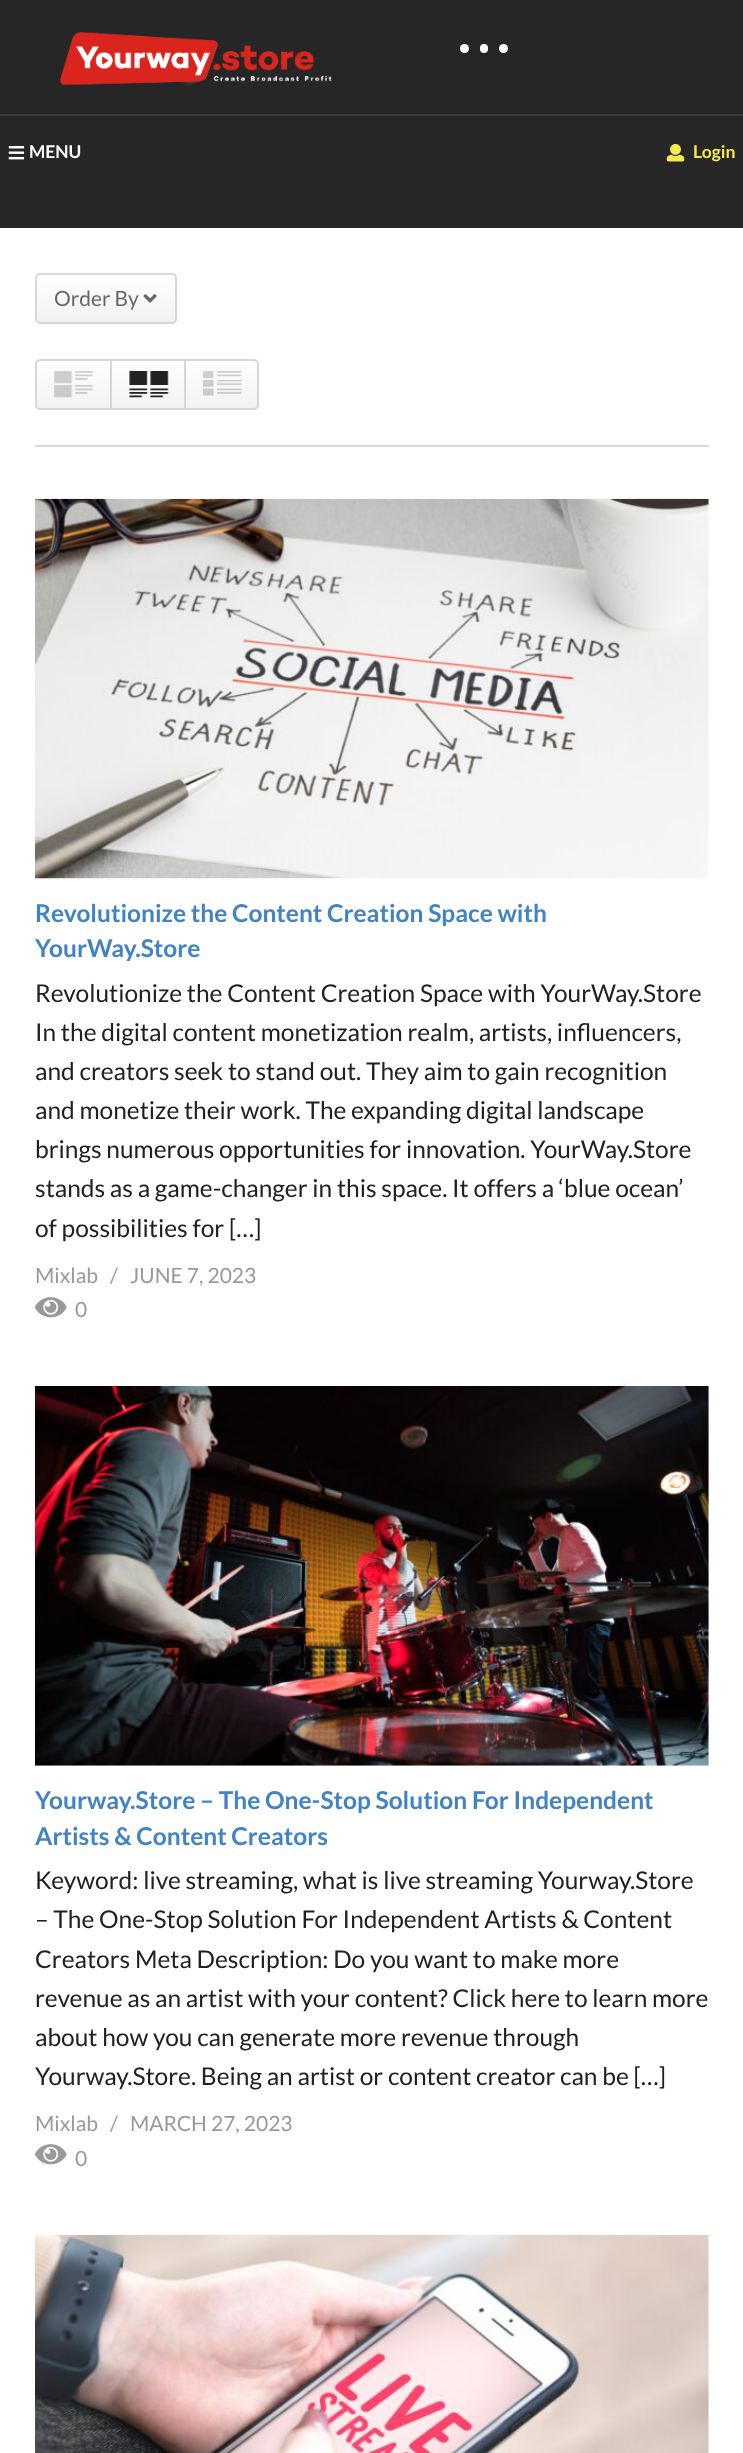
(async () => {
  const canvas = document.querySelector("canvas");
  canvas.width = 743;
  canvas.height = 2453;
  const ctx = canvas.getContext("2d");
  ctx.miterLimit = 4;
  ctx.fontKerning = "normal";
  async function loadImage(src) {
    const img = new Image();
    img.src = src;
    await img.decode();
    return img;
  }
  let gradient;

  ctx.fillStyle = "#ffffff";
  ctx.fillRect(0, 0, 743, 2453);
  ctx.fillStyle = "#262626";
  ctx.fillRect(0, 0, 743, 228);
  ctx.drawImage(await loadImage("img/1.png"), 59, 31, 273, 55);
  ctx.fillStyle = "#ffffff";
  ctx.beginPath();
  ctx.arc(464.5, 48.5, 4.5, 0, Math.PI * 2);
  ctx.fill();
  ctx.beginPath();
  ctx.roundRect(480, 44, 8, 9, 4);
  ctx.fill();
  ctx.beginPath();
  ctx.arc(503.5, 48.5, 4.5, 0, Math.PI * 2);
  ctx.fill();
  ctx.fillStyle = "#3c3c3c";
  ctx.fillRect(0, 114, 743, 2);
  ctx.drawImage(await loadImage("img/2.png"), 8, 146, 17, 14);
  ctx.drawImage(await loadImage("img/3.png"), 666, 143, 19, 19);
  ctx.fillStyle = "#d7d7d7";
  ctx.fillRect(35, 445, 674, 2);
  ctx.save();
  ctx.beginPath();
  ctx.roundRect(35, 273, 142, 51, 5);
  ctx.clip();
  gradient = ctx.createLinearGradient(106, 275, 106, 322);
  gradient.addColorStop(0, "#ffffff");
  gradient.addColorStop(1, "#f2f2f2");
  ctx.fillStyle = gradient;
  ctx.fillRect(35, 275, 142, 47);
  ctx.restore();
  ctx.beginPath();
  ctx.roundRect(36, 274, 140, 49, 4);
  ctx.strokeStyle = "#d7d7d7";
  ctx.lineWidth = 2;
  ctx.stroke();
  ctx.drawImage(await loadImage("img/4.png"), 143, 294, 14, 9);
  ctx.save();
  ctx.beginPath();
  ctx.roundRect(35, 359, 224, 51, 5);
  ctx.clip();
  gradient = ctx.createLinearGradient(147, 361, 147, 408);
  gradient.addColorStop(0, "#ffffff");
  gradient.addColorStop(1, "#f2f2f2");
  ctx.fillStyle = gradient;
  ctx.fillRect(35, 361, 224, 47);
  ctx.restore();
  ctx.beginPath();
  ctx.roundRect(36, 360, 222, 49, 4);
  ctx.stroke();
  ctx.drawImage(await loadImage("img/5.png"), 54, 371, 40, 27);
  ctx.fillRect(110, 361, 2, 47);
  ctx.drawImage(await loadImage("img/6.png"), 129, 371, 40, 27);
  ctx.fillRect(184, 361, 2, 47);
  ctx.drawImage(await loadImage("img/7.png"), 203, 371, 39, 25);
  ctx.drawImage(await loadImage("img/8.png"), 35, 498, 674, 381);
  ctx.drawImage(await loadImage("img/9.png"), 35, 1297, 32, 21);
  ctx.drawImage(await loadImage("img/10.png"), 35, 1386, 674, 380);
  ctx.drawImage(await loadImage("img/9.png"), 35, 2144, 32, 21);
  ctx.drawImage(await loadImage("img/11.png"), 35, 2234, 674, 219);
  ctx.font = "bold 17.5px Lato";
  ctx.fillStyle = "#ffffff";
  ctx.fillText("MENU", 29, 158);
  ctx.fillStyle = "#f5eb4e";
  ctx.fillText("Login", 693, 158);
  ctx.font = "21px Lato";
  ctx.fillStyle = "#666666";
  ctx.fillText("Order By", 54, 306);
  ctx.font = "bold 24.5px Lato";
  ctx.fillStyle = "#4183c4";
  ctx.fillText("Revolutionize the Content Creation Space with", 35, 922);
  ctx.fillText("YourWay.Store", 35, 957);
  ctx.font = "24.5px Lato";
  ctx.fillStyle = "#212121";
  for (const [text, x, y] of [
    ["Revolutionize the Content Creation Space with YourWay.Store", 35, 1002],
    ["In the digital content monetization realm, artists, influencers,", 35, 1041],
    ["and creators seek to stand out. They aim to gain recognition", 35, 1080],
    ["and monetize their work. The expanding digital landscape", 35, 1119],
    ["brings numerous opportunities for innovation. YourWay.Store", 35, 1158],
    ["stands as a game-changer in this space. It offers a ‘blue ocean’", 35, 1197],
    ["of possibilities for […]", 35, 1237],
  ]) {
    ctx.fillText(text, x, y);
  }
  ctx.font = "21px Lato";
  ctx.fillStyle = "#999999";
  for (const [text, x, y] of [
    ["Mixlab", 35, 1283],
    ["/", 110, 1283],
    ["JUNE 7, 2023", 130, 1283],
    ["0", 75, 1317],
  ]) {
    ctx.fillText(text, x, y);
  }
  ctx.font = "bold 24.5px Lato";
  ctx.fillStyle = "#4183c4";
  ctx.fillText("Yourway.Store – The One-Stop Solution For Independent", 35, 1809);
  ctx.fillText("Artists & Content Creators", 35, 1845);
  ctx.font = "24.5px Lato";
  ctx.fillStyle = "#212121";
  for (const [text, x, y] of [
    ["Keyword: live streaming, what is live streaming Yourway.Store", 35, 1889],
    ["– The One-Stop Solution For Independent Artists & Content", 35, 1928],
    ["Creators Meta Description: Do you want to make more", 35, 1968],
    ["revenue as an artist with your content? Click here to learn more", 35, 2007],
    ["about how you can generate more revenue through", 35, 2046],
    ["Yourway.Store. Being an artist or content creator can be […]", 35, 2085],
  ]) {
    ctx.fillText(text, x, y);
  }
  ctx.font = "21px Lato";
  ctx.fillStyle = "#999999";
  for (const [text, x, y] of [
    ["Mixlab", 35, 2131],
    ["/", 110, 2131],
    ["MARCH 27, 2023", 130, 2131],
    ["0", 75, 2166],
  ]) {
    ctx.fillText(text, x, y);
  }
})();
